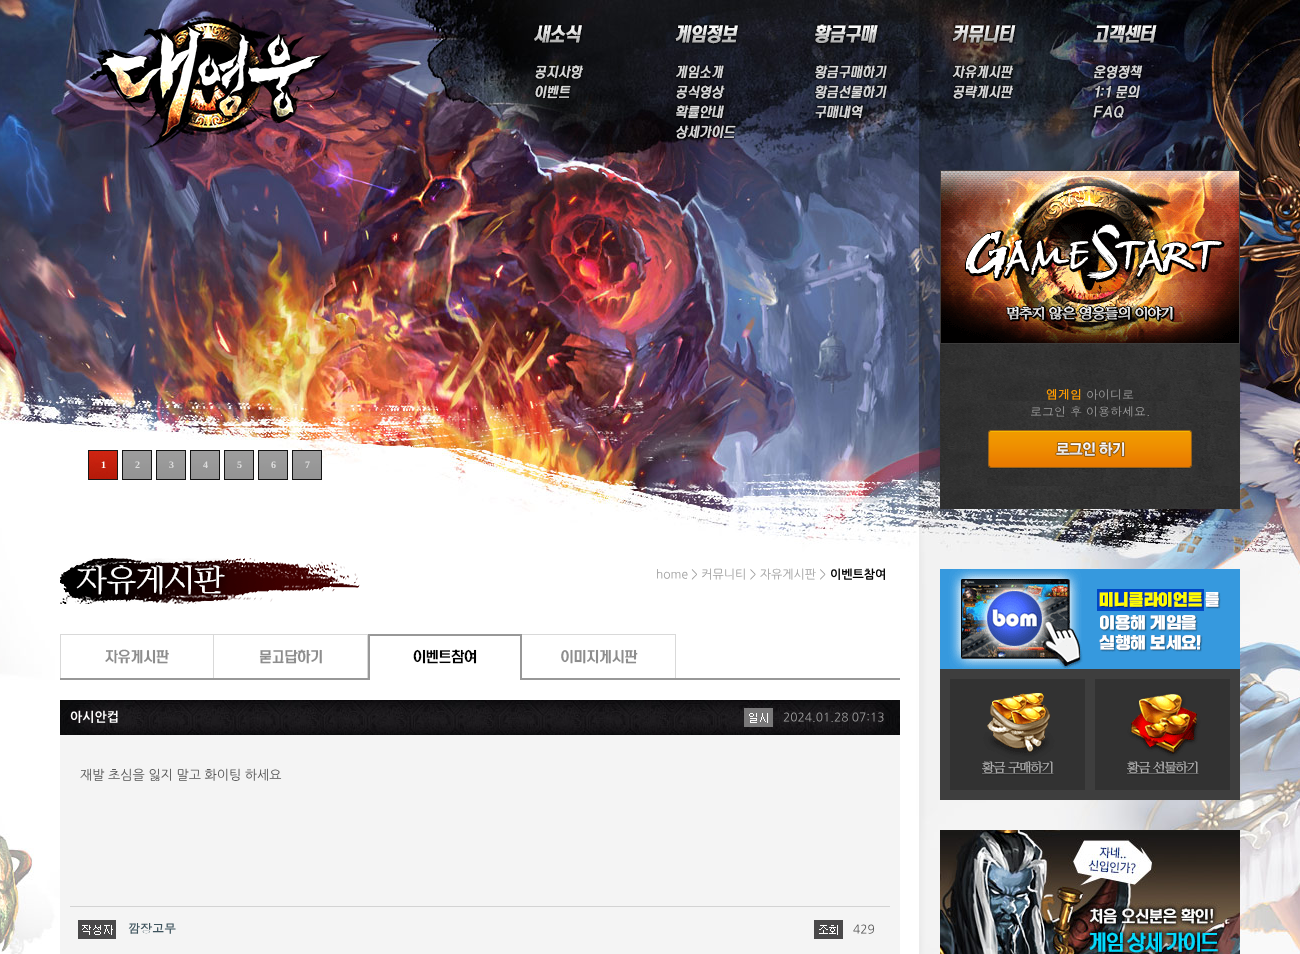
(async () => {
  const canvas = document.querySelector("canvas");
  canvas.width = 1300;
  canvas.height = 954;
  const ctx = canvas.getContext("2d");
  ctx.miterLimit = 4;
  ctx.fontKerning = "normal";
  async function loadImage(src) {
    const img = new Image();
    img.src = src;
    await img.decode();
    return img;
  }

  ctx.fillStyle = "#ffffff";
  ctx.fillRect(0, 0, 1300, 954);
  ctx.drawImage(await loadImage("img/1.png"), 0, 0, 1300, 954);
  ctx.drawImage(await loadImage("img/2.png"), 89, 15, 250, 134);
  ctx.drawImage(await loadImage("img/3.png"), 533, 24, 50, 20);
  ctx.drawImage(await loadImage("img/4.png"), 534, 64, 50, 16);
  ctx.drawImage(await loadImage("img/5.png"), 534, 84, 38, 15);
  ctx.drawImage(await loadImage("img/6.png"), 674, 23, 65, 22);
  ctx.drawImage(await loadImage("img/7.png"), 675, 64, 50, 16);
  ctx.drawImage(await loadImage("img/8.png"), 675, 84, 51, 16);
  ctx.drawImage(await loadImage("img/9.png"), 675, 104, 50, 16);
  ctx.drawImage(await loadImage("img/10.png"), 675, 124, 62, 17);
  ctx.drawImage(await loadImage("img/11.png"), 814, 23, 65, 22);
  ctx.drawImage(await loadImage("img/12.png"), 814, 64, 74, 17);
  ctx.drawImage(await loadImage("img/13.png"), 814, 83, 74, 18);
  ctx.drawImage(await loadImage("img/14.png"), 814, 103, 51, 17);
  ctx.drawImage(await loadImage("img/15.png"), 951, 23, 66, 22);
  ctx.drawImage(await loadImage("img/16.png"), 951, 63, 64, 17);
  ctx.drawImage(await loadImage("img/17.png"), 952, 84, 63, 17);
  ctx.drawImage(await loadImage("img/18.png"), 1091, 23, 66, 22);
  ctx.drawImage(await loadImage("img/19.png"), 1092, 63, 52, 18);
  ctx.drawImage(await loadImage("img/20.png"), 1094, 83, 48, 18);
  ctx.drawImage(await loadImage("img/21.png"), 1092, 104, 34, 16);
  ctx.drawImage(await loadImage("img/22.png"), 940, 170, 300, 174);
  ctx.drawImage(await loadImage("img/23.png"), 940, 344, 300, 165);
  ctx.drawImage(await loadImage("img/24.png"), 988, 430, 204, 39);
  ctx.drawImage(await loadImage("img/25.png"), 88, 450, 30, 30);
  ctx.drawImage(await loadImage("img/26.png"), 122, 450, 30, 30);
  ctx.drawImage(await loadImage("img/26.png"), 156, 450, 30, 30);
  ctx.drawImage(await loadImage("img/26.png"), 190, 450, 30, 30);
  ctx.drawImage(await loadImage("img/26.png"), 224, 450, 30, 30);
  ctx.drawImage(await loadImage("img/26.png"), 258, 450, 30, 30);
  ctx.drawImage(await loadImage("img/26.png"), 292, 450, 30, 30);
  ctx.drawImage(await loadImage("img/27.png"), 60, 558, 300, 46);
  ctx.fillStyle = "#989898";
  ctx.fillRect(60, 678, 840, 2);
  ctx.drawImage(await loadImage("img/28.png"), 60, 634, 154, 44);
  ctx.drawImage(await loadImage("img/29.png"), 214, 634, 154, 44);
  ctx.drawImage(await loadImage("img/30.png"), 368, 634, 154, 46);
  ctx.drawImage(await loadImage("img/31.png"), 522, 634, 154, 44);
  ctx.fillStyle = "#f4f4f4";
  ctx.fillRect(60, 735, 840, 219);
  ctx.drawImage(await loadImage("img/32.png"), 60, 700, 840, 35);
  ctx.drawImage(await loadImage("img/33.png"), 744, 708, 29, 19);
  ctx.fillStyle = "#d3d3d3";
  ctx.fillRect(70, 906, 820, 1);
  ctx.drawImage(await loadImage("img/34.png"), 78, 920, 38, 19);
  ctx.drawImage(await loadImage("img/35.png"), 814, 920, 29, 19);
  ctx.drawImage(await loadImage("img/36.png"), 940, 569, 300, 100);
  ctx.drawImage(await loadImage("img/37.png"), 940, 669, 300, 131);
  ctx.drawImage(await loadImage("img/38.png"), 940, 830, 300, 124);
  ctx.font = "bold 12px Dotum";
  ctx.fillStyle = "#ff9c00";
  ctx.fillText("엠게임", 1046, 399);
  ctx.font = "12px Dotum";
  ctx.fillStyle = "#9f9f9f";
  ctx.fillText("아이디로", 1086, 399);
  ctx.fillText("로그인 후 이용하세요.", 1030, 416);
  ctx.font = "bold 10px Liberation Serif";
  ctx.fillStyle = "#ffffff";
  ctx.fillText("1", 101, 468);
  ctx.fillStyle = "#dddddd";
  for (const [text, x, y] of [
    ["2", 135, 468],
    ["3", 169, 468],
    ["4", 203, 468],
    ["5", 237, 468],
    ["6", 271, 468],
    ["7", 305, 468],
  ]) {
    ctx.fillText(text, x, y);
  }
  ctx.font = "12px NanumGothic";
  ctx.fillStyle = "#9f9f9f";
  ctx.fillText("home > 커뮤니티 > 자유게시판 >", 656, 578);
  ctx.font = "bold 12px NanumGothic";
  ctx.fillStyle = "#000000";
  ctx.fillText("이벤트참여", 830, 578);
  ctx.font = "bold 13px NanumGothic";
  ctx.fillStyle = "#ffffff";
  ctx.fillText("아시안컵", 70, 721);
  ctx.font = "12px NanumGothic";
  ctx.fillStyle = "#9f9f9f";
  ctx.fillText("2024.01.28 07:13", 783, 721);
  ctx.font = "13px NanumGothic";
  ctx.fillStyle = "#565656";
  ctx.fillText("재발 초심을 잃지 말고 화이팅 하세요", 80, 779);
  ctx.font = "bold 12px Dotum";
  ctx.fillStyle = "#3d535d";
  ctx.fillText("깜장고무", 128, 933);
  ctx.font = "12px NanumGothic";
  ctx.fillStyle = "#565656";
  ctx.fillText("429", 853, 933);
})();
